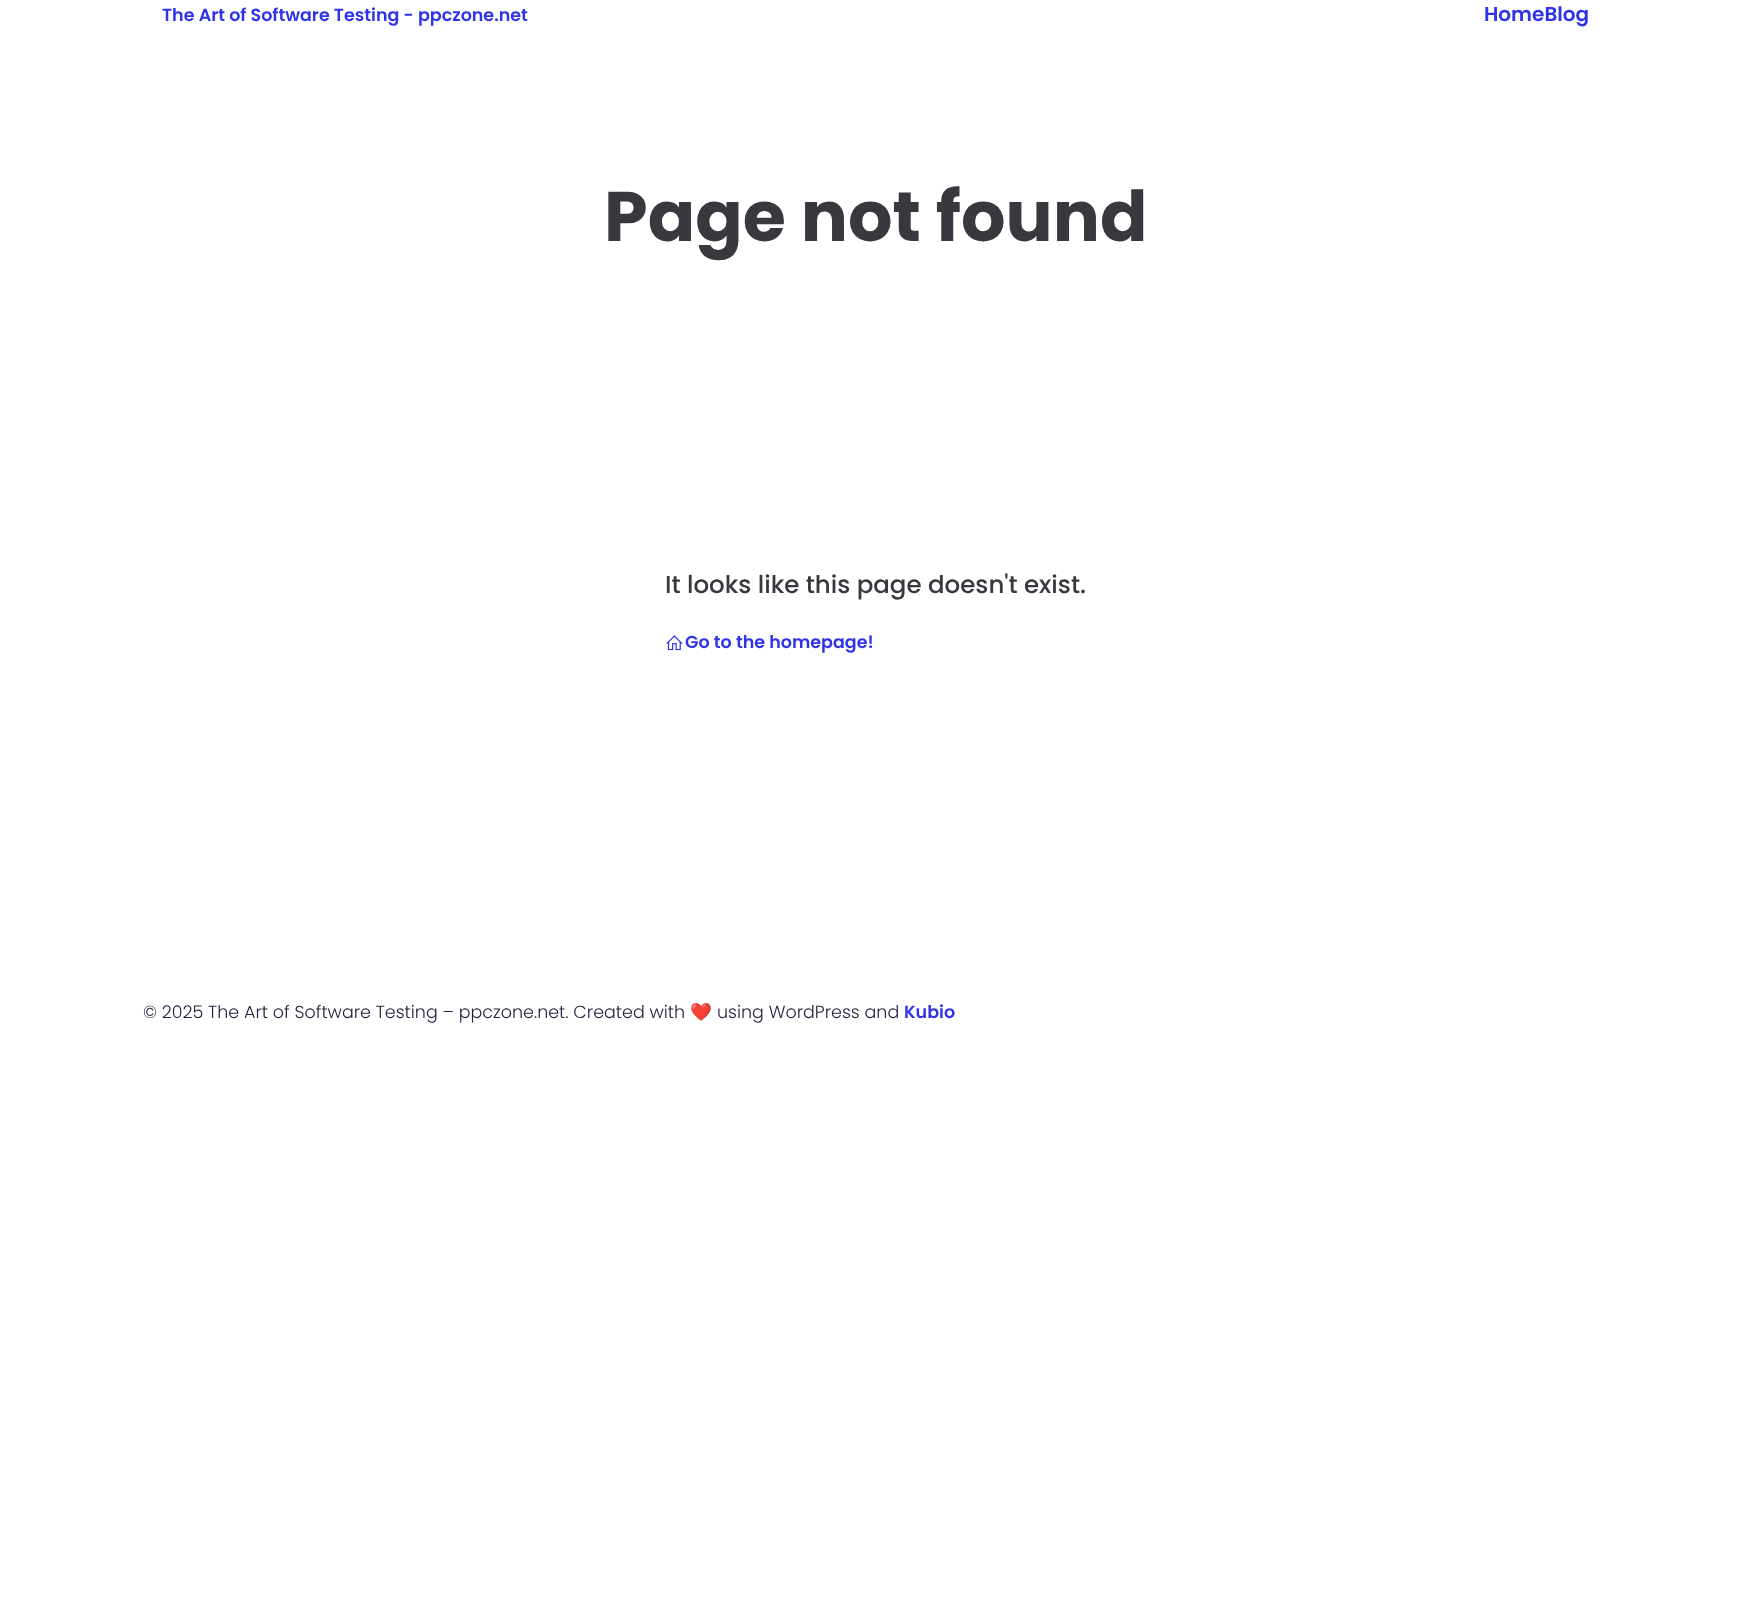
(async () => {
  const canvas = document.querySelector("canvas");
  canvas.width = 1751;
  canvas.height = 1619;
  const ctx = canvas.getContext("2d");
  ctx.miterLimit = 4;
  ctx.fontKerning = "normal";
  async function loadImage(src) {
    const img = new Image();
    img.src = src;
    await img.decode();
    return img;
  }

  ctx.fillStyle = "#ffffff";
  ctx.fillRect(0, 0, 1751, 1619);
  ctx.drawImage(await loadImage("img/1.png"), 666, 635, 17, 16);
  ctx.font = "600 17.5px Poppins";
  ctx.fillStyle = "#2f34e7";
  ctx.fillText("The Art of Software Testing - ppczone.net", 162, 21);
  ctx.font = "600 20px Poppins";
  ctx.fillText("HomeBlog", 1484, 21);
  ctx.font = "bold 70px Poppins";
  ctx.fillStyle = "#38383e";
  ctx.fillText("Page not found", 604, 241);
  ctx.font = "500 24.5px Poppins";
  ctx.fillText("It looks like this page doesn't exist.", 665, 593);
  ctx.font = "600 17.5px Poppins";
  ctx.fillStyle = "#2f34e7";
  ctx.fillText("Go to the homepage!", 685, 648);
  ctx.font = "300 17.5px Poppins";
  ctx.fillStyle = "#23233d";
  ctx.fillText("© 2025 The Art of Software Testing – ppczone.net. Created with", 143, 1018);
  ctx.font = "17.5px Noto Color Emoji";
  ctx.fillText("❤️", 690, 1018);
  ctx.font = "300 17.5px Poppins";
  ctx.fillText("using WordPress and", 717, 1018);
  ctx.font = "600 17.5px Poppins";
  ctx.fillStyle = "#2f34e7";
  ctx.fillText("Kubio", 904, 1018);
})();
